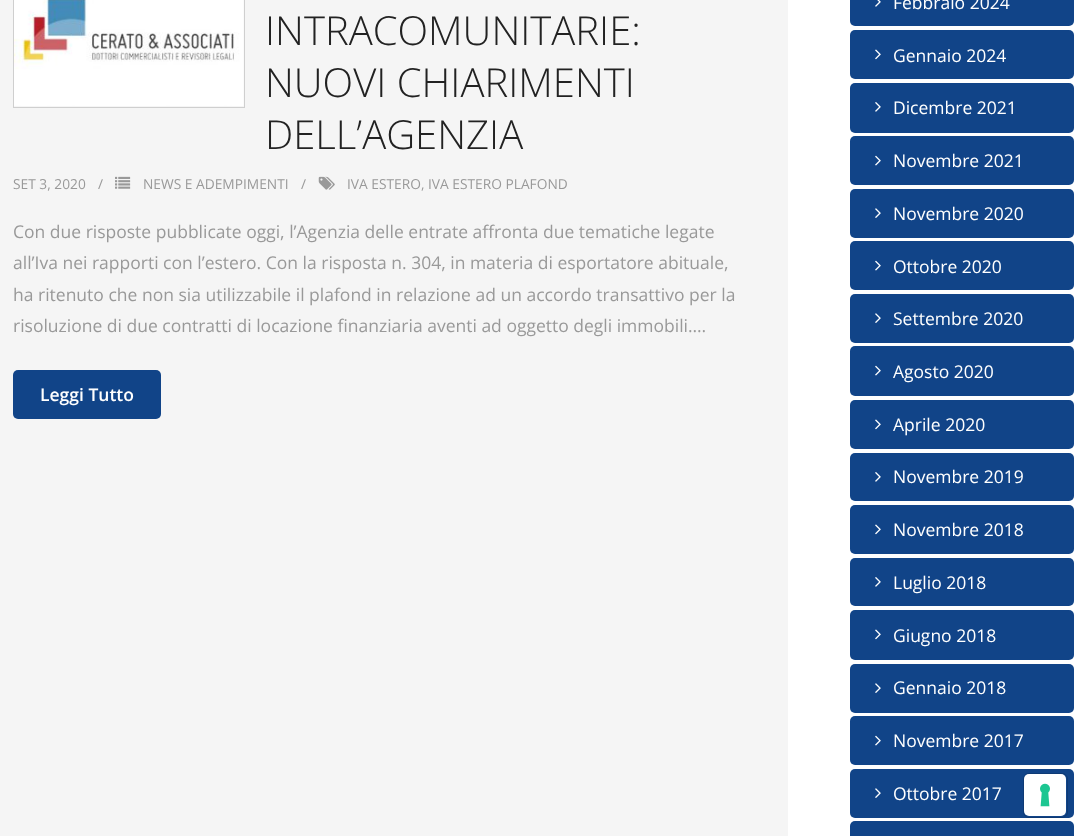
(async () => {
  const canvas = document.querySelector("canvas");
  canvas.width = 1086;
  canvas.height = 836;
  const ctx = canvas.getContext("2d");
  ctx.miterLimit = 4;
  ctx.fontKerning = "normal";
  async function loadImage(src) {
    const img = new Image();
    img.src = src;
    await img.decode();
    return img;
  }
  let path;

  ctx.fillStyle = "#f5f5f5";
  ctx.fillRect(0, 0, 1086, 836);
  ctx.strokeStyle = "#cfcfcf";
  ctx.strokeRect(13.5, -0.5, 231, 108);
  ctx.drawImage(await loadImage("img/1.png"), 14, 0, 230, 106);
  ctx.drawImage(await loadImage("img/2.png"), 115, 176, 16, 13);
  ctx.drawImage(await loadImage("img/3.png"), 318, 176, 17, 14);
  ctx.fillStyle = "#114488";
  ctx.beginPath();
  ctx.roundRect(13, 370, 148, 49, 5);
  ctx.fill();
  ctx.fillStyle = "#ffffff";
  path = new Path2D("M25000 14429V-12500H788V-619H1074V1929H788V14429Z");
  ctx.fill(path);
  ctx.fillRect(788, 0, 286, 836);
  ctx.fillStyle = "#114488";
  ctx.beginPath();
  ctx.roundRect(850, -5, 224, 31, 5);
  ctx.fill();
  ctx.drawImage(await loadImage("img/4.png"), 875, 0, 6, 7);
  ctx.beginPath();
  ctx.roundRect(850, 30, 224, 49, 5);
  ctx.fill();
  ctx.drawImage(await loadImage("img/5.png"), 875, 49, 6, 11);
  ctx.beginPath();
  ctx.roundRect(850, 83, 224, 50, 5);
  ctx.fill();
  ctx.drawImage(await loadImage("img/6.png"), 875, 102, 6, 10);
  ctx.beginPath();
  ctx.roundRect(850, 136, 224, 49, 5);
  ctx.fill();
  ctx.drawImage(await loadImage("img/7.png"), 875, 155, 6, 11);
  ctx.beginPath();
  ctx.roundRect(850, 189, 224, 49, 5);
  ctx.fill();
  ctx.drawImage(await loadImage("img/8.png"), 875, 208, 6, 10);
  ctx.beginPath();
  ctx.roundRect(850, 241, 224, 49, 5);
  ctx.fill();
  ctx.drawImage(await loadImage("img/7.png"), 875, 260, 6, 11);
  ctx.beginPath();
  ctx.roundRect(850, 294, 224, 49, 5);
  ctx.fill();
  ctx.drawImage(await loadImage("img/8.png"), 875, 313, 6, 10);
  ctx.beginPath();
  ctx.roundRect(850, 346, 224, 50, 5);
  ctx.fill();
  ctx.drawImage(await loadImage("img/7.png"), 875, 365, 6, 11);
  ctx.beginPath();
  ctx.roundRect(850, 400, 224, 49, 5);
  ctx.fill();
  ctx.drawImage(await loadImage("img/5.png"), 875, 419, 6, 11);
  ctx.beginPath();
  ctx.roundRect(850, 453, 224, 48, 5);
  ctx.fill();
  ctx.drawImage(await loadImage("img/6.png"), 875, 472, 6, 10);
  ctx.beginPath();
  ctx.roundRect(850, 505, 224, 49, 5);
  ctx.fill();
  ctx.drawImage(await loadImage("img/5.png"), 875, 524, 6, 11);
  ctx.beginPath();
  ctx.roundRect(850, 558, 224, 48, 5);
  ctx.fill();
  ctx.drawImage(await loadImage("img/6.png"), 875, 577, 6, 10);
  ctx.beginPath();
  ctx.roundRect(850, 610, 224, 50, 5);
  ctx.fill();
  ctx.drawImage(await loadImage("img/5.png"), 875, 629, 6, 11);
  ctx.beginPath();
  ctx.roundRect(850, 664, 224, 49, 5);
  ctx.fill();
  ctx.drawImage(await loadImage("img/8.png"), 875, 683, 6, 10);
  ctx.beginPath();
  ctx.roundRect(850, 716, 224, 49, 5);
  ctx.fill();
  ctx.drawImage(await loadImage("img/7.png"), 875, 735, 6, 11);
  ctx.beginPath();
  ctx.roundRect(850, 769, 224, 49, 5);
  ctx.fill();
  ctx.drawImage(await loadImage("img/8.png"), 875, 788, 6, 10);
  ctx.beginPath();
  ctx.roundRect(850, 821, 224, 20, 5);
  ctx.fill();
  ctx.beginPath();
  ctx.roundRect(1023.5, 773.5, 44, 44, 5.5);
  ctx.strokeStyle = "#0e3a74";
  ctx.stroke();
  ctx.fillStyle = "#ffffff";
  ctx.beginPath();
  ctx.roundRect(1024, 774, 42, 42, 5);
  ctx.fill();
  ctx.drawImage(await loadImage("img/9.png"), 1040, 783, 10, 24);
  ctx.font = "300 40px Open Sans";
  ctx.fillStyle = "#222222";
  for (const [text, x, y] of [
    ["INTRACOMUNITARIE:", 265, 45],
    ["NUOVI CHIARIMENTI", 265, 97],
    ["DELL’AGENZIA", 265, 149],
  ]) {
    ctx.fillText(text, x, y);
  }
  ctx.font = "13.75px Open Sans";
  ctx.fillStyle = "#999999";
  for (const [text, x, y] of [
    ["SET 3, 2020", 13, 189],
    ["/", 98, 189],
    ["NEWS E ADEMPIMENTI", 143, 189],
    ["/", 301, 189],
    ["IVA ESTERO, IVA ESTERO PLAFOND", 347, 189],
  ]) {
    ctx.fillText(text, x, y);
  }
  ctx.font = "17.5px Open Sans";
  for (const [text, x, y] of [
    ["Con due risposte pubblicate oggi, l’Agenzia delle entrate affronta due tematiche legate", 13, 238],
    ["all’Iva nei rapporti con l’estero. Con la risposta n. 304, in materia di esportatore abituale,", 13, 269],
    ["ha ritenuto che non sia utilizzabile il plafond in relazione ad un accordo transattivo per la", 13, 301],
    ["risoluzione di due contratti di locazione finanziaria aventi ad oggetto degli immobili.…", 13, 332],
  ]) {
    ctx.fillText(text, x, y);
  }
  ctx.font = "600 17.5px Open Sans";
  ctx.fillStyle = "#ffffff";
  ctx.fillText("Leggi Tutto", 40, 401);
  ctx.font = "17.5px Open Sans";
  for (const [text, x, y] of [
    ["Febbraio 2024", 893, 9],
    ["Gennaio 2024", 893, 62],
    ["Dicembre 2021", 893, 114],
    ["Novembre 2021", 893, 167],
    ["Novembre 2020", 893, 220],
    ["Ottobre 2020", 893, 273],
    ["Settembre 2020", 893, 325],
    ["Agosto 2020", 893, 378],
    ["Aprile 2020", 893, 431],
    ["Novembre 2019", 893, 483],
    ["Novembre 2018", 893, 536],
    ["Luglio 2018", 893, 589],
    ["Giugno 2018", 893, 642],
    ["Gennaio 2018", 893, 694],
    ["Novembre 2017", 893, 747],
    ["Ottobre 2017", 893, 800],
  ]) {
    ctx.fillText(text, x, y);
  }
})();
